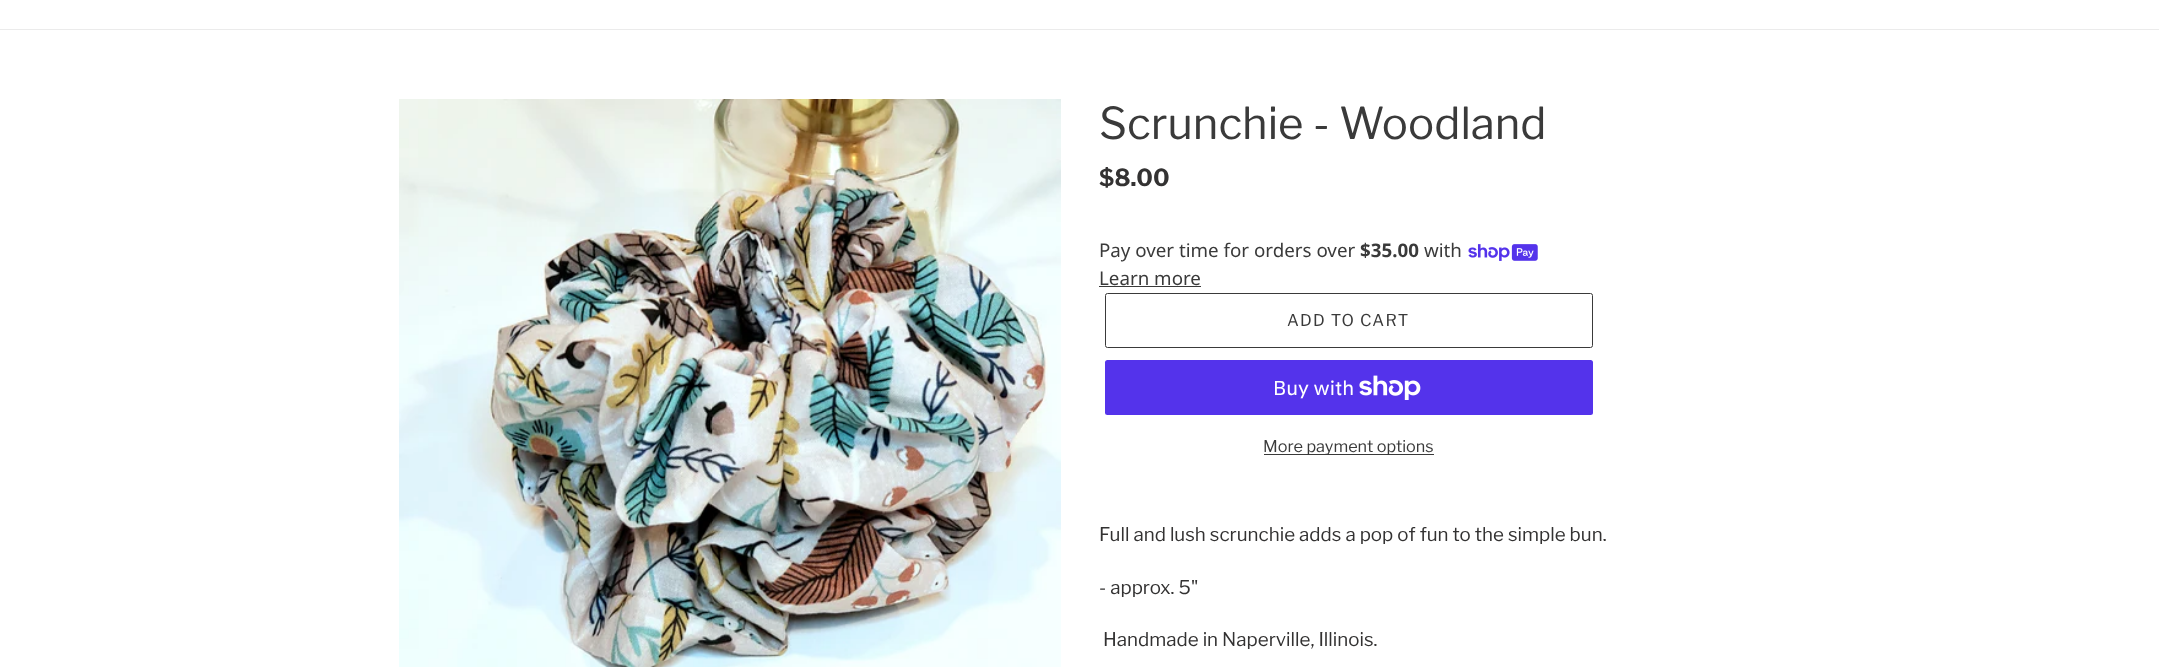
(async () => {
  const canvas = document.querySelector("canvas");
  canvas.width = 2159;
  canvas.height = 667;
  const ctx = canvas.getContext("2d");
  ctx.miterLimit = 4;
  ctx.fontKerning = "normal";
  async function loadImage(src) {
    const img = new Image();
    img.src = src;
    await img.decode();
    return img;
  }

  ctx.fillStyle = "#ffffff";
  ctx.fillRect(0, 0, 2159, 667);
  ctx.fillStyle = "#ebebeb";
  ctx.fillRect(0, 29, 2159, 1);
  ctx.drawImage(await loadImage("img/1.png"), 399, 99, 662, 568);
  ctx.drawImage(await loadImage("img/2.png"), 1468, 244, 70, 17);
  ctx.fillStyle = "#3a3a3a";
  ctx.fillRect(1099, 286, 102, 1);
  ctx.beginPath();
  ctx.roundRect(1105.5, 293.5, 487, 54, 2);
  ctx.strokeStyle = "#3a3a3a";
  ctx.stroke();
  ctx.fillStyle = "#5433eb";
  ctx.beginPath();
  ctx.roundRect(1105, 360, 488, 55, 2.5);
  ctx.fill();
  ctx.drawImage(await loadImage("img/3.png"), 1359, 375, 62, 25);
  ctx.fillStyle = "#3a3a3a";
  ctx.fillRect(1264, 454, 170, 1);
  ctx.font = "43.75px Libre Franklin";
  ctx.fillText("Scrunchie - Woodland", 1099, 139);
  ctx.font = "bold 23.5px Libre Franklin";
  ctx.fillStyle = "#333232";
  ctx.fillText("$8.00", 1099, 186);
  ctx.font = "18.75px Noto Sans";
  ctx.fillStyle = "#3a3a3a";
  ctx.fillText("Pay over time for orders over", 1099, 257);
  ctx.font = "bold 18.75px Noto Sans";
  ctx.fillText("$35.00", 1360, 257);
  ctx.font = "18.75px Noto Sans";
  ctx.fillText("with", 1424, 257);
  ctx.fillText("Learn more", 1099, 285);
  ctx.letterSpacing = "1.25px";
  ctx.font = "16.25px Libre Franklin";
  ctx.fillText("ADD TO CART", 1287, 326);
  ctx.letterSpacing = "0px";
  ctx.font = "20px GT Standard";
  ctx.fillStyle = "#ffffff";
  ctx.fillText("Buy with", 1273, 395);
  ctx.font = "16.25px Libre Franklin";
  ctx.fillStyle = "#3a3a3a";
  ctx.fillText("More payment options", 1263, 452);
  ctx.font = "18.75px Libre Franklin";
  ctx.fillStyle = "#333232";
  for (const [text, x, y] of [
    ["Full and lush scrunchie adds a pop of fun to the simple bun.", 1099, 541],
    ["- approx. 5\"", 1099, 594],
    ["Handmade in Naperville, Illinois.", 1103, 646],
  ]) {
    ctx.fillText(text, x, y);
  }
})();
